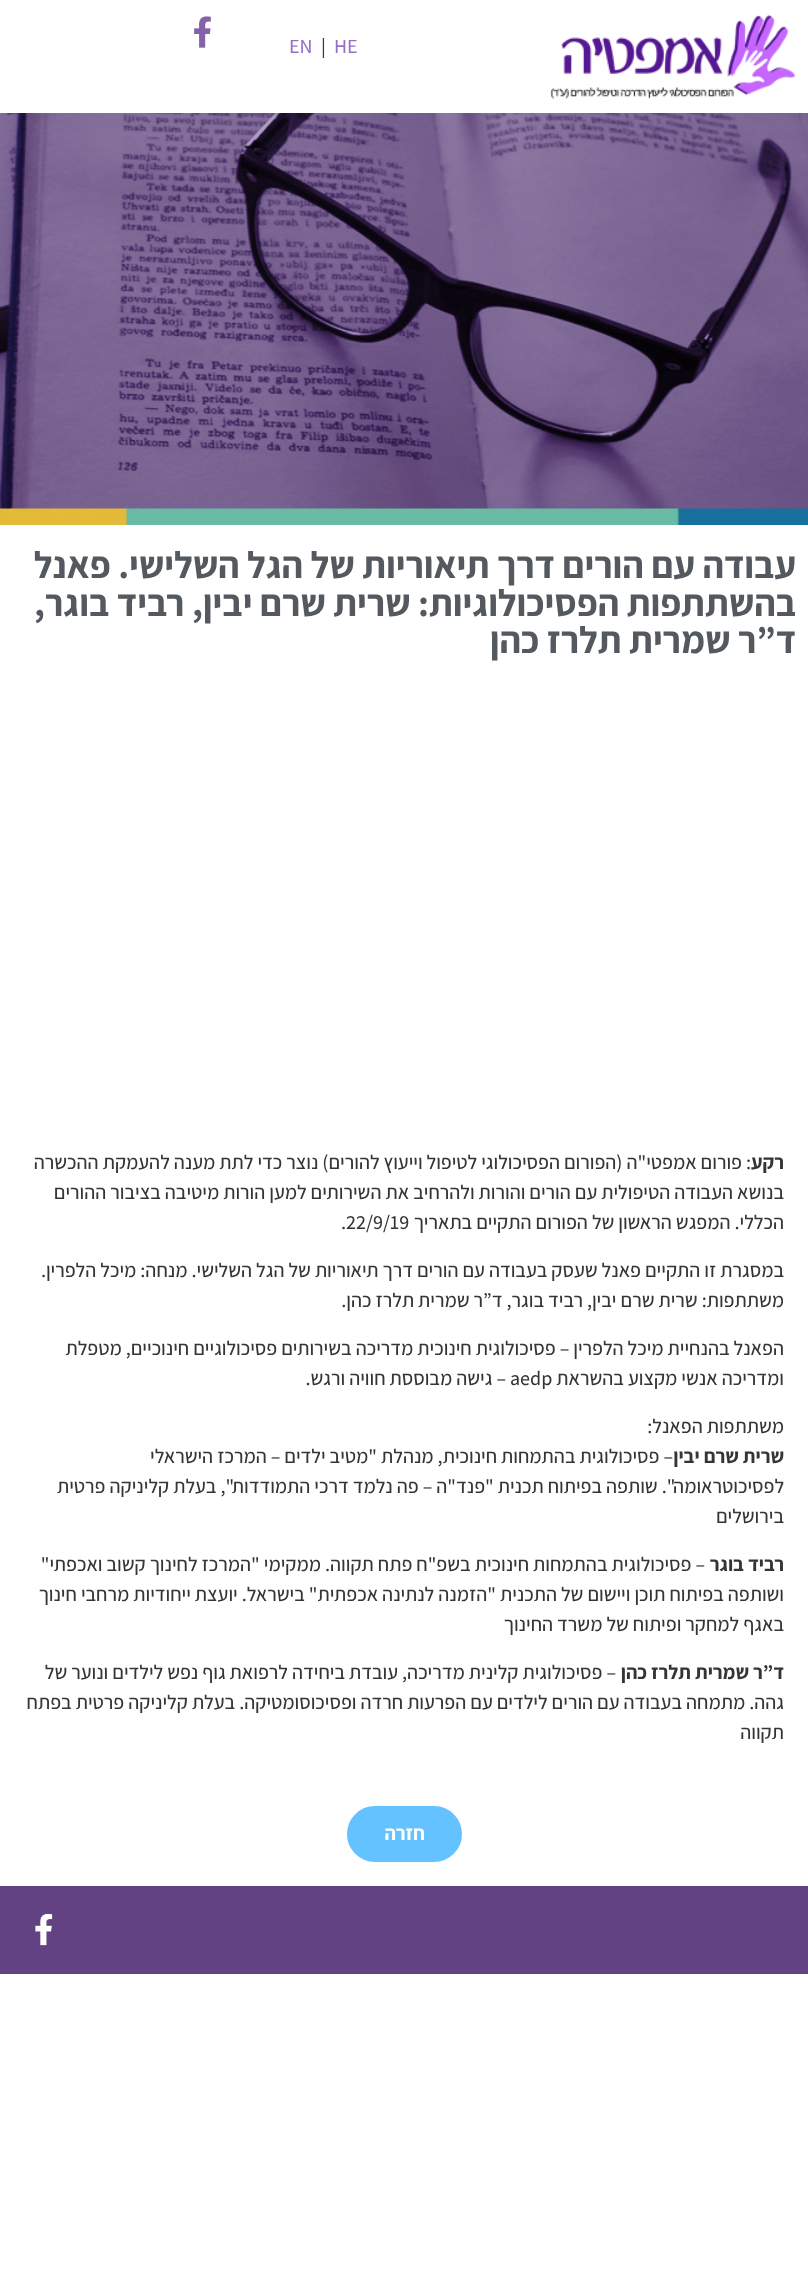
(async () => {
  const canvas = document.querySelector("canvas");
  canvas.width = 808;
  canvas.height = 2296;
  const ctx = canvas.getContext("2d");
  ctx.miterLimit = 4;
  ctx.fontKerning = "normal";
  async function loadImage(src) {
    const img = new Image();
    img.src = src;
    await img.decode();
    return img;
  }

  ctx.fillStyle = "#ffffff";
  ctx.fillRect(0, 0, 808, 2296);
  ctx.drawImage(await loadImage("img/1.png"), 550, 14, 246, 85);
  ctx.drawImage(await loadImage("img/2.png"), 194, 16, 17, 32);
  ctx.drawImage(await loadImage("img/3.png"), 0, 113, 808, 412);
  ctx.fillStyle = "#63c2ff";
  ctx.beginPath();
  ctx.roundRect(345.5, 1804.5, 118, 59, 29.5);
  ctx.fill();
  ctx.strokeStyle = "#ffffff";
  ctx.lineWidth = 3;
  ctx.stroke();
  ctx.fillStyle = "#634284";
  ctx.fillRect(0, 1886, 808, 88);
  ctx.drawImage(await loadImage("img/4.png"), 35, 1913, 18, 33);
  ctx.font = "500 20px Assistant";
  ctx.fillStyle = "#976fc1";
  ctx.fillText("HE", 334, 53);
  ctx.fillStyle = "#363535";
  ctx.fillText("|", 321, 53);
  ctx.fillStyle = "#976fc1";
  ctx.fillText("EN", 289, 53);
  ctx.direction = "rtl";
  ctx.font = "bold 37.5px Assistant";
  ctx.fillStyle = "#54595f";
  for (const [text, x, y] of [
    ["עבודה עם הורים דרך תיאוריות של הגל השלישי. פאנל", 796, 578],
    ["בהשתתפות הפסיכולוגיות: שרית שרם יבין, רביד בוגר,", 796, 616],
    ["ד”ר שמרית תלרז כהן", 796, 653],
  ]) {
    ctx.fillText(text, x, y);
  }
  ctx.font = "bold 20px Assistant";
  ctx.fillStyle = "#363535";
  ctx.fillText("רקע", 784, 1169);
  ctx.font = "500 20px Assistant";
  for (const [text, x, y] of [
    [": פורום אמפטי\"ה (הפורום הפסיכולוגי לטיפול וייעוץ להורים) נוצר כדי לתת מענה להעמקת ההכשרה", 751, 1169],
    ["בנושא העבודה הטיפולית עם הורים והורות ולהרחיב את השירותים למען הורות מיטיבה בציבור ההורים", 784, 1199],
    ["הכללי. המפגש הראשון של הפורום התקיים בתאריך", 784, 1229],
  ]) {
    ctx.fillText(text, x, y);
  }
  ctx.direction = "ltr";
  ctx.fillText(".22/9/19", 341, 1229);
  ctx.direction = "rtl";
  for (const [text, x, y] of [
    ["במסגרת זו התקיים פאנל שעסק בעבודה עם הורים דרך תיאוריות של הגל השלישי. מנחה: מיכל הלפרין.", 784, 1277],
    ["משתתפות: שרית שרם יבין, רביד בוגר, ד”ר שמרית תלרז כהן.", 784, 1307],
    ["הפאנל בהנחיית מיכל הלפרין – פסיכולוגית חינוכית מדריכה בשירותים פסיכולוגיים חינוכיים, מטפלת", 784, 1355],
    ["ומדריכה אנשי מקצוע בהשראת", 784, 1385],
  ]) {
    ctx.fillText(text, x, y);
  }
  ctx.direction = "ltr";
  ctx.fillText("aedp", 510, 1385);
  ctx.direction = "rtl";
  ctx.fillText("– גישה מבוססת חוויה ורגש.", 506, 1385);
  ctx.fillText("משתתפות הפאנל:", 784, 1433);
  ctx.font = "bold 20px Assistant";
  ctx.fillText("שרית שרם יבין", 784, 1463);
  ctx.font = "500 20px Assistant";
  for (const [text, x, y] of [
    ["– פסיכולוגית בהתמחות חינוכית, מנהלת \"מטיב ילדים – המרכז הישראלי", 673, 1463],
    ["לפסיכוטראומה\". שותפה בפיתוח תכנית \"פנד\"ה – פה נלמד דרכי התמודדות\", בעלת קליניקה פרטית", 784, 1493],
    ["בירושלים", 784, 1523],
  ]) {
    ctx.fillText(text, x, y);
  }
  ctx.font = "bold 20px Assistant";
  ctx.fillText("רביד בוגר", 784, 1571);
  ctx.font = "500 20px Assistant";
  for (const [text, x, y] of [
    ["– פסיכולוגית בהתמחות חינוכית בשפ\"ח פתח תקווה. ממקימי \"המרכז לחינוך קשוב ואכפתי\"", 705, 1571],
    ["ושותפה בפיתוח תוכן ויישום של התכנית \"הזמנה לנתינה אכפתית\" בישראל. יועצת ייחודיות מרחבי חינוך", 784, 1601],
    ["באגף למחקר ופיתוח של משרד החינוך", 784, 1631],
  ]) {
    ctx.fillText(text, x, y);
  }
  ctx.font = "bold 20px Assistant";
  ctx.fillText("ד”ר שמרית תלרז כהן", 784, 1679);
  ctx.font = "500 20px Assistant";
  for (const [text, x, y] of [
    ["– פסיכולוגית קלינית מדריכה, עובדת ביחידה לרפואת גוף נפש לילדים ונוער של", 616, 1679],
    ["גהה. מתמחה בעבודה עם הורים לילדים עם הפרעות חרדה ופסיכוסומטיקה. בעלת קליניקה פרטית בפתח", 784, 1709],
    ["תקווה", 784, 1739],
  ]) {
    ctx.fillText(text, x, y);
  }
  ctx.font = "bold 20px Assistant";
  ctx.fillStyle = "#ffffff";
  ctx.fillText("חזרה", 425, 1840);
})();
